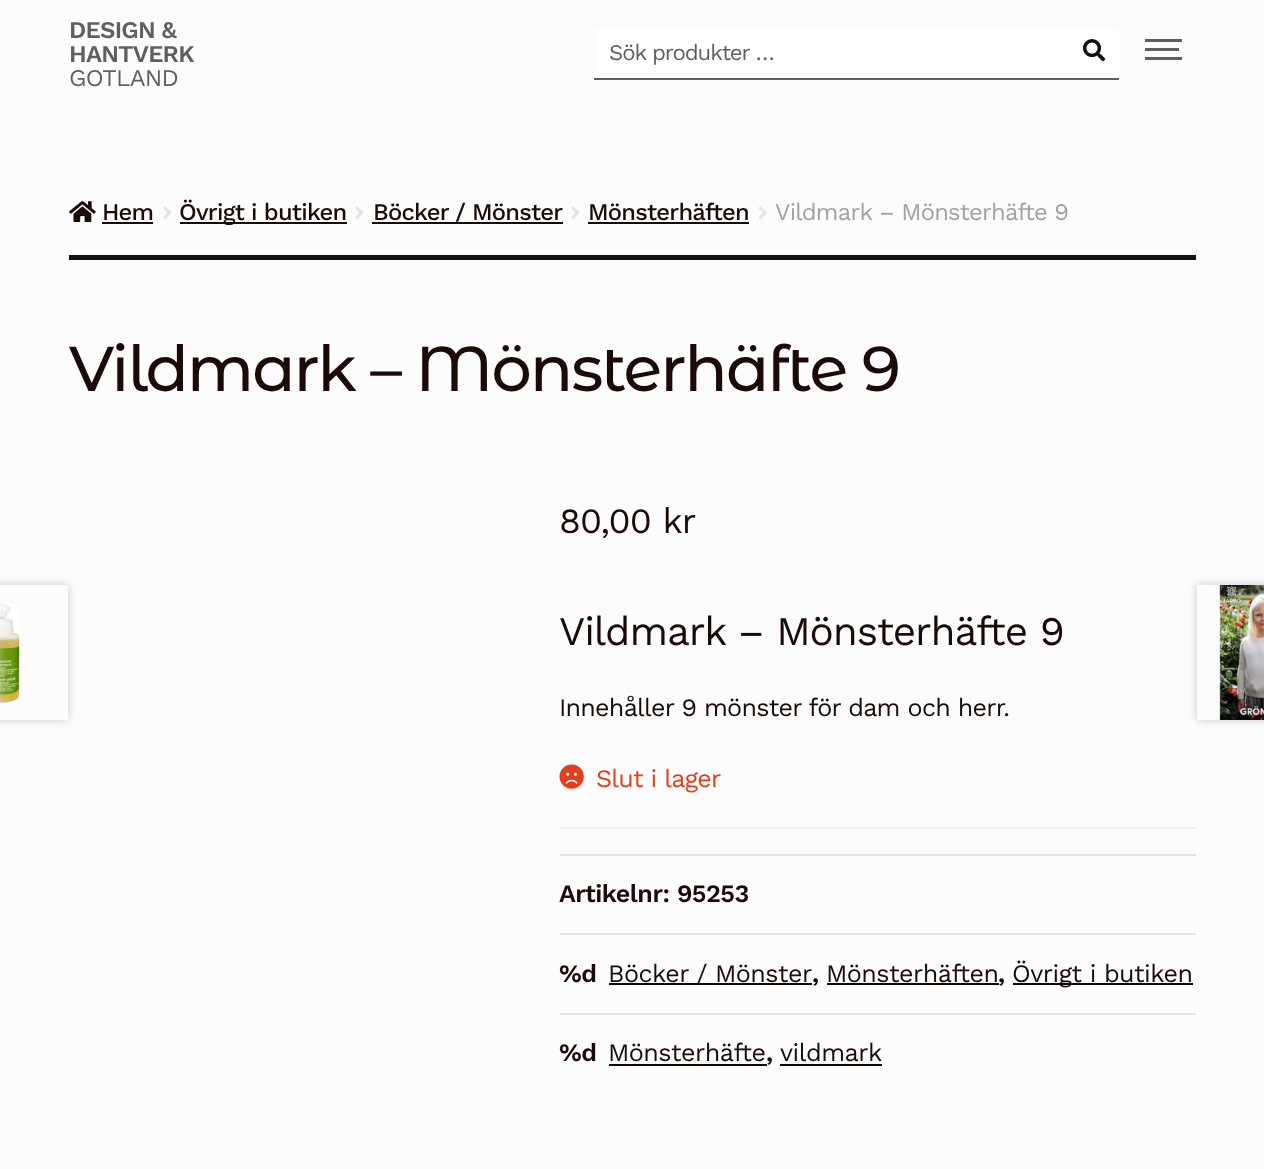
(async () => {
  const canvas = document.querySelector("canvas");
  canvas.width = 1264;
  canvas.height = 1169;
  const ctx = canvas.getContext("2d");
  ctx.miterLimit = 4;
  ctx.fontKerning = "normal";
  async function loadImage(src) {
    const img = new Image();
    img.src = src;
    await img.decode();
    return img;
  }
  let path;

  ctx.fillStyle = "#fcfcfc";
  ctx.fillRect(0, 0, 1264, 1169);
  ctx.fillStyle = "#ffffff";
  ctx.fillRect(594, 29, 525, 49);
  ctx.fillStyle = "#5f5f5f";
  ctx.fillRect(594, 78, 525, 2);
  ctx.drawImage(await loadImage("img/1.png"), 1083, 39, 23, 23);
  for (const [x, y, w, h, color] of [
    [1145, 39, 37, 3, "#5f5f5f"],
    [1145, 48, 34, 3, "#5f5f5f"],
    [1145, 57, 37, 3, "#5f5f5f"],
    [69, 255, 1127, 5, "#151515"],
  ]) {
    ctx.fillStyle = color;
    ctx.fillRect(x, y, w, h);
  }
  ctx.drawImage(await loadImage("img/2.png"), 69, 201, 27, 21);
  ctx.fillStyle = "#1a0b09";
  ctx.fillRect(102, 222, 51, 2);
  ctx.drawImage(await loadImage("img/3.png"), 163, 206, 9, 13);
  ctx.fillRect(180, 222, 167, 2);
  ctx.drawImage(await loadImage("img/3.png"), 355, 206, 9, 13);
  ctx.fillRect(372, 222, 191, 2);
  ctx.drawImage(await loadImage("img/3.png"), 571, 206, 9, 13);
  ctx.fillRect(588, 222, 161, 2);
  ctx.drawImage(await loadImage("img/4.png"), 758, 206, 9, 14);
  ctx.drawImage(await loadImage("img/5.png"), 559, 764, 25, 25);
  for (const [x, y, w, h, color] of [
    [560, 827, 636, 2, "#efefef"],
    [560, 854, 636, 2, "#e3e3e3"],
    [560, 933, 636, 2, "#e3e3e3"],
    [609, 983, 203, 2, "#150604"],
    [827, 983, 172, 2, "#150604"],
    [1013, 983, 180, 2, "#150604"],
    [560, 1013, 636, 2, "#e3e3e3"],
    [609, 1064, 158, 2, "#150604"],
    [780, 1064, 102, 2, "#150604"],
  ]) {
    ctx.fillStyle = color;
    ctx.fillRect(x, y, w, h);
  }
  ctx.fillStyle = "rgba(0, 0, 0, 0.2)";
  ctx.filter = "blur(4px)";
  ctx.beginPath();
  ctx.rect(-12, 585, 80, 135);
  ctx.fill();
  ctx.filter = "none";
  ctx.fillStyle = "#fcfcfc";
  ctx.fillRect(0, 585, 68, 135);
  ctx.drawImage(await loadImage("img/6.png"), 0, 604, 20, 99);
  ctx.save();
  path = new Path2D("M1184 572H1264V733H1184ZM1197 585H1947V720H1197Z");
  ctx.clip(path, "evenodd");
  ctx.fillStyle = "rgba(0, 0, 0, 0.2)";
  ctx.filter = "blur(4px)";
  ctx.beginPath();
  ctx.rect(1197, 585, 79, 135);
  ctx.fill();
  ctx.filter = "none";
  ctx.restore();
  ctx.drawImage(await loadImage("img/7.png"), 1218, 585, 46, 135);
  ctx.letterSpacing = "-0.75px";
  ctx.font = "600 24px Work Sans";
  ctx.fillStyle = "#5f5f5f";
  ctx.fillText("DESIGN &", 69, 38);
  ctx.fillText("HANTVERK", 69, 62);
  ctx.font = "24px Work Sans";
  ctx.fillText("GOTLAND", 69, 86);
  ctx.letterSpacing = "-1.1px";
  ctx.font = "22.25px Work Sans";
  ctx.fillText("Sök produkter …", 609, 60);
  ctx.letterSpacing = "-0.75px";
  ctx.font = "500 23.75px Work Sans";
  ctx.fillStyle = "#1a0b09";
  for (const [text, x, y] of [
    ["Hem", 102, 220],
    ["Övrigt i butiken", 179, 220],
    ["Böcker / Mönster", 373, 220],
    ["Mönsterhäften", 588, 220],
  ]) {
    ctx.fillText(text, x, y);
  }
  ctx.font = "23.75px Work Sans";
  ctx.fillStyle = "#a2a1a1";
  ctx.fillText("Vildmark – Mönsterhäfte 9", 775, 220);
  ctx.letterSpacing = "-1.75px";
  ctx.font = "500 63.4px Montserrat Alternates";
  ctx.fillStyle = "#1a0b09";
  ctx.fillText("Vildmark – Mönsterhäfte 9", 69, 391);
  ctx.letterSpacing = "-0.75px";
  ctx.font = "35.5px Work Sans";
  ctx.fillText("80,00 kr", 559, 533);
  ctx.letterSpacing = "-1.1px";
  ctx.font = "40.5px Work Sans";
  ctx.fillText("Vildmark – Mönsterhäfte 9", 559, 645);
  ctx.letterSpacing = "-0.75px";
  ctx.font = "25.1px Work Sans";
  ctx.fillText("Innehåller 9 mönster för dam och herr.", 559, 716);
  ctx.fillStyle = "#e2401c";
  ctx.fillText("Slut i lager", 596, 787);
  ctx.letterSpacing = "-0.5px";
  ctx.font = "600 25.1px Work Sans";
  ctx.fillStyle = "#1a0b09";
  ctx.fillText("Artikelnr: 95253", 559, 902);
  ctx.fillText("%d", 559, 982);
  ctx.font = "25.1px Work Sans";
  ctx.fillText("Böcker / Mönster", 608, 982);
  ctx.font = "600 25.1px Work Sans";
  ctx.fillText(",", 812, 982);
  ctx.font = "25.1px Work Sans";
  ctx.fillText("Mönsterhäften", 826, 982);
  ctx.font = "600 25.1px Work Sans";
  ctx.fillText(",", 998, 982);
  ctx.font = "25.1px Work Sans";
  ctx.fillText("Övrigt i butiken", 1012, 982);
  ctx.font = "600 25.1px Work Sans";
  ctx.fillText("%d", 559, 1061);
  ctx.font = "25.1px Work Sans";
  ctx.fillText("Mönsterhäfte", 608, 1061);
  ctx.font = "600 25.1px Work Sans";
  ctx.fillText(",", 766, 1061);
  ctx.font = "25.1px Work Sans";
  ctx.fillText("vildmark", 780, 1061);
})();
